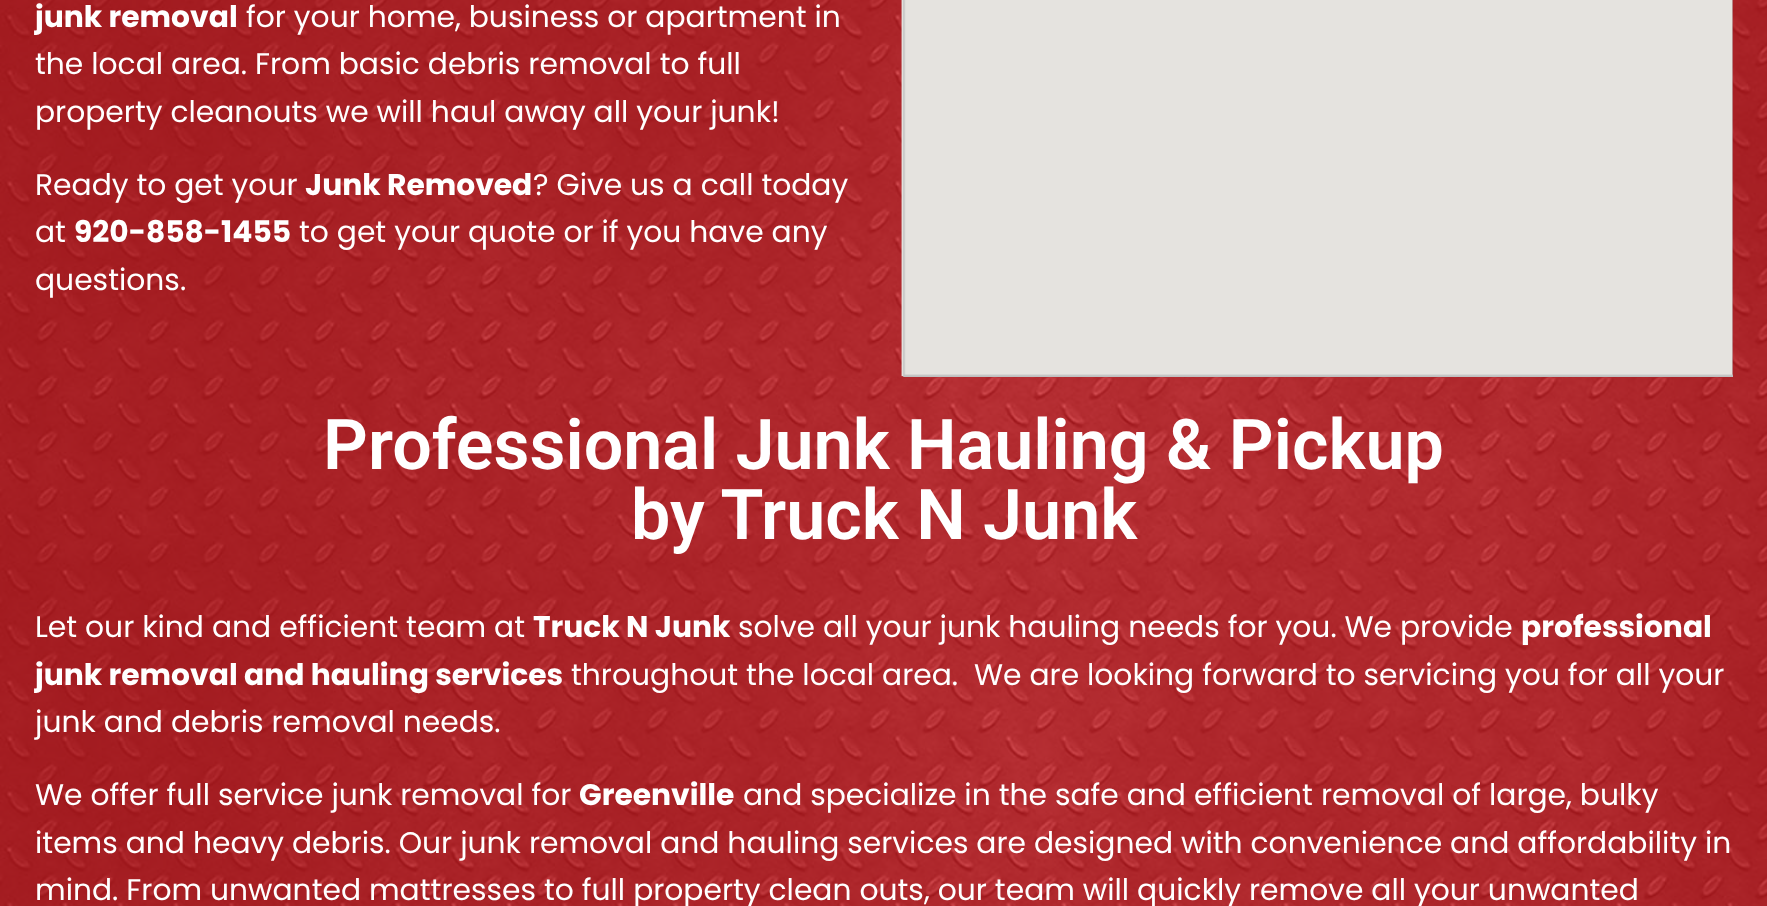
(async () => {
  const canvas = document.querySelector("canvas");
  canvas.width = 1767;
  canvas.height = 906;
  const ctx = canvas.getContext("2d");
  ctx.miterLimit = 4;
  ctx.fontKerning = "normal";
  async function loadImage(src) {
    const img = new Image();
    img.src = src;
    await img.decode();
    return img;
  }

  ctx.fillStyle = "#ffffff";
  ctx.fillRect(0, 0, 1767, 906);
  ctx.drawImage(await loadImage("img/1.png"), 0, 0, 1767, 906);
  ctx.drawImage(await loadImage("img/2.png"), 901, 0, 832, 377);
  ctx.font = "bold 29.75px Poppins";
  ctx.fillText("junk removal", 35, 27);
  ctx.font = "29.75px Poppins";
  for (const [text, x, y] of [
    ["for your home, business or apartment in", 246, 27],
    ["the local area. From basic debris removal to full", 35, 74],
    ["property cleanouts we will haul away all your junk!", 35, 122],
    ["Ready to get your", 35, 195],
  ]) {
    ctx.fillText(text, x, y);
  }
  ctx.font = "bold 29.75px Poppins";
  ctx.fillText("Junk Removed", 305, 195);
  ctx.font = "29.75px Poppins";
  ctx.fillText("? Give us a call today", 533, 195);
  ctx.fillText("at", 35, 242);
  ctx.font = "bold 29.75px Poppins";
  ctx.fillText("920-858-1455", 74, 242);
  ctx.font = "29.75px Poppins";
  ctx.fillText("to get your quote or if you have any", 299, 242);
  ctx.fillText("questions.", 35, 290);
  ctx.font = "600 70px Roboto";
  ctx.fillText("Professional Junk Hauling & Pickup", 323, 469);
  ctx.fillText("by Truck N Junk", 631, 539);
  ctx.font = "29.75px Poppins";
  ctx.fillText("Let our kind and efficient team at", 35, 637);
  ctx.font = "bold 29.75px Poppins";
  ctx.fillText("Truck N Junk", 533, 637);
  ctx.font = "29.75px Poppins";
  ctx.fillText("solve all your junk hauling needs for you. We provide", 738, 637);
  ctx.font = "bold 29.75px Poppins";
  ctx.fillText("professional", 1521, 637);
  ctx.fillText("junk removal and hauling services", 35, 685);
  ctx.font = "29.75px Poppins";
  for (const [text, x, y] of [
    ["throughout the local area.  We are looking forward to servicing you for all your", 571, 685],
    ["junk and debris removal needs.", 35, 732],
    ["We offer full service junk removal for", 35, 805],
  ]) {
    ctx.fillText(text, x, y);
  }
  ctx.font = "bold 29.75px Poppins";
  ctx.fillText("Greenville", 579, 805);
  ctx.font = "29.75px Poppins";
  for (const [text, x, y] of [
    ["and specialize in the safe and efficient removal of large, bulky", 743, 805],
    ["items and heavy debris. Our junk removal and hauling services are designed with convenience and affordability in", 35, 853],
    ["mind. From unwanted mattresses to full property clean outs, our team will quickly remove all your unwanted", 35, 900],
  ]) {
    ctx.fillText(text, x, y);
  }
})();
